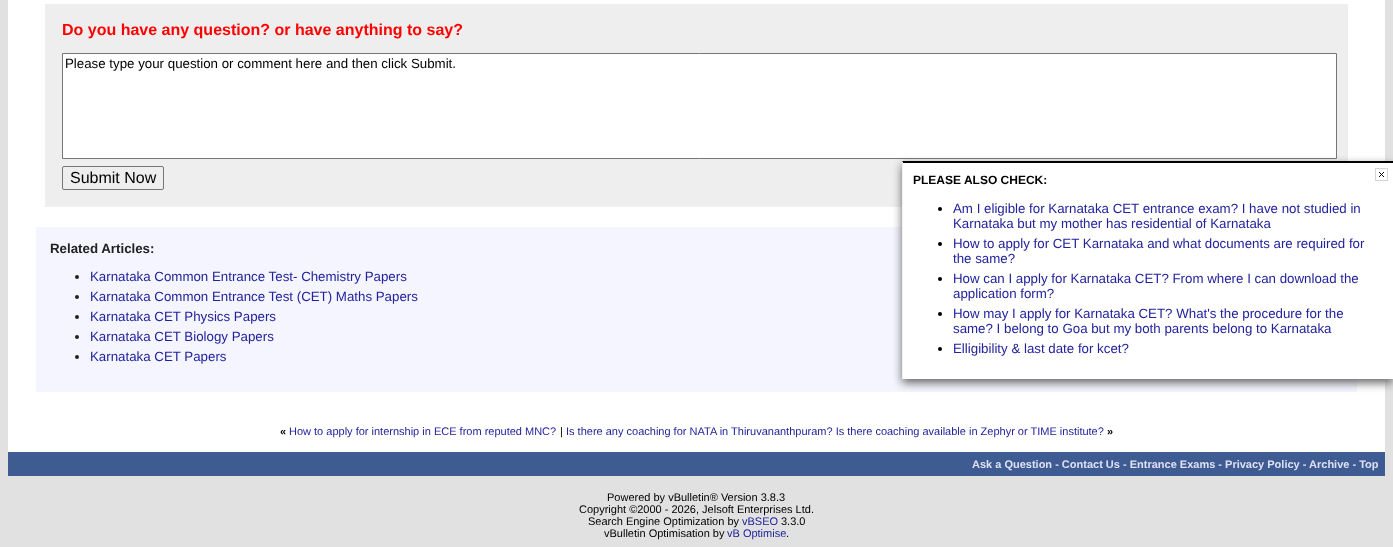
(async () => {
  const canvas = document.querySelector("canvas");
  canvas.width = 1393;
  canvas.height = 547;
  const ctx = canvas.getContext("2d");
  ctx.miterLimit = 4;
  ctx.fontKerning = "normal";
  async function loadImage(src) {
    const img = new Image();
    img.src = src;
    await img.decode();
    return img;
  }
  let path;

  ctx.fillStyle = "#e1e1e2";
  ctx.fillRect(0, 0, 1393, 547);
  ctx.fillStyle = "#ffffff";
  ctx.fillRect(8, 0, 1377, 452);
  ctx.fillStyle = "#eeeeee";
  ctx.fillRect(45, 4, 1303, 203);
  ctx.fillStyle = "#ffffff";
  ctx.beginPath();
  ctx.rect(62.5, 53.5, 1274, 105);
  ctx.fill();
  ctx.strokeStyle = "#767676";
  ctx.stroke();
  ctx.beginPath();
  ctx.roundRect(62.5, 166.5, 101, 23, 1.5);
  ctx.stroke();
  ctx.fillStyle = "#f5f5ff";
  ctx.fillRect(36, 227, 1321, 165);
  ctx.fillStyle = "#222222";
  ctx.beginPath();
  ctx.arc(77, 277, 2, 0, Math.PI * 2);
  ctx.fill();
  ctx.beginPath();
  ctx.arc(77, 297, 2, 0, Math.PI * 2);
  ctx.fill();
  ctx.beginPath();
  ctx.arc(77, 317, 2, 0, Math.PI * 2);
  ctx.fill();
  ctx.beginPath();
  ctx.arc(77, 337, 2, 0, Math.PI * 2);
  ctx.fill();
  ctx.beginPath();
  ctx.arc(77, 357, 2, 0, Math.PI * 2);
  ctx.fill();
  ctx.fillStyle = "#666666";
  ctx.filter = "blur(5px)";
  ctx.beginPath();
  ctx.rect(902, 165, 491, 218);
  ctx.fill();
  ctx.filter = "none";
  ctx.fillStyle = "#ffffff";
  ctx.fillRect(902, 161, 491, 218);
  ctx.fillStyle = "#000000";
  path = new Path2D("M902 161H1393V163H903Z");
  ctx.fill(path);
  ctx.fillStyle = "#f0f0f0";
  path = new Path2D("M902 379V161L903 163V379Z");
  ctx.fill(path);
  ctx.drawImage(await loadImage("img/1.png"), 1375, 168, 13, 13);
  ctx.fillStyle = "#000000";
  ctx.beginPath();
  ctx.arc(940, 209, 2, 0, Math.PI * 2);
  ctx.fill();
  ctx.beginPath();
  ctx.arc(940, 244, 2, 0, Math.PI * 2);
  ctx.fill();
  ctx.beginPath();
  ctx.arc(940, 279, 2, 0, Math.PI * 2);
  ctx.fill();
  ctx.beginPath();
  ctx.arc(940, 314, 2, 0, Math.PI * 2);
  ctx.fill();
  ctx.beginPath();
  ctx.arc(940, 349, 2, 0, Math.PI * 2);
  ctx.fill();
  ctx.fillStyle = "#3e5c92";
  ctx.fillRect(8, 452, 1377, 24);
  ctx.font = "bold 16px Liberation Sans";
  ctx.fillStyle = "#ff0000";
  ctx.fillText("Do you have any question? or have anything to say?", 62, 35);
  ctx.font = "13.3px Liberation Sans";
  ctx.fillStyle = "#000000";
  ctx.fillText("Please type your question or comment here and then click Submit.", 65, 68);
  ctx.font = "16px Liberation Sans";
  ctx.fillText("Submit Now", 70, 183);
  ctx.font = "bold 13.3px Liberation Sans";
  ctx.fillStyle = "#222222";
  ctx.fillText("Related Articles:", 50, 253);
  ctx.font = "13.3px Liberation Sans";
  ctx.fillStyle = "#22229c";
  for (const [text, x, y] of [
    ["Karnataka Common Entrance Test- Chemistry Papers", 90, 281],
    ["Karnataka Common Entrance Test (CET) Maths Papers", 90, 301],
    ["Karnataka CET Physics Papers", 90, 321],
    ["Karnataka CET Biology Papers", 90, 341],
    ["Karnataka CET Papers", 90, 361],
  ]) {
    ctx.fillText(text, x, y);
  }
  ctx.font = "bold 11px Liberation Sans";
  ctx.fillStyle = "#000000";
  ctx.fillText("«", 280, 435);
  ctx.font = "11px Liberation Sans";
  ctx.fillStyle = "#22229c";
  ctx.fillText("How to apply for internship in ECE from reputed MNC?", 289, 435);
  ctx.fillStyle = "#000000";
  ctx.fillText("|", 560, 435);
  ctx.fillStyle = "#22229c";
  ctx.fillText("Is there any coaching for NATA in Thiruvananthpuram? Is there coaching available in Zephyr or TIME institute?", 566, 435);
  ctx.font = "bold 11px Liberation Sans";
  ctx.fillStyle = "#000000";
  ctx.fillText("»", 1107, 435);
  ctx.font = "bold 12px Liberation Sans";
  ctx.fillText("PLEASE ALSO CHECK:", 913, 184);
  ctx.font = "13.3px Liberation Sans";
  ctx.fillStyle = "#22229c";
  for (const [text, x, y] of [
    ["Am I eligible for Karnataka CET entrance exam? I have not studied in", 953, 213],
    ["Karnataka but my mother has residential of Karnataka", 953, 228],
    ["How to apply for CET Karnataka and what documents are required for", 953, 248],
    ["the same?", 953, 263],
    ["How can I apply for Karnataka CET? From where I can download the", 953, 283],
    ["application form?", 953, 298],
    ["How may I apply for Karnataka CET? What's the procedure for the", 953, 318],
    ["same? I belong to Goa but my both parents belong to Karnataka", 953, 333],
    ["Elligibility & last date for kcet?", 953, 353],
  ]) {
    ctx.fillText(text, x, y);
  }
  ctx.font = "bold 11px Liberation Sans";
  ctx.fillStyle = "#e0e0f6";
  ctx.fillText("Ask a Question - Contact Us - Entrance Exams - Privacy Policy - Archive - Top", 972, 468);
  ctx.font = "11px Liberation Sans";
  ctx.fillStyle = "#000000";
  for (const [text, x, y] of [
    ["Powered by vBulletin® Version 3.8.3", 607, 501],
    ["Copyright ©2000 - 2026, Jelsoft Enterprises Ltd.", 579, 513],
    ["Search Engine Optimization by", 588, 525],
  ]) {
    ctx.fillText(text, x, y);
  }
  ctx.fillStyle = "#22229c";
  ctx.fillText("vBSEO", 742, 525);
  ctx.fillStyle = "#000000";
  ctx.fillText("3.3.0", 781, 525);
  ctx.fillText("vBulletin Optimisation by", 604, 537);
  ctx.fillStyle = "#22229c";
  ctx.fillText("vB Optimise", 727, 537);
  ctx.fillStyle = "#000000";
  ctx.fillText(".", 786, 537);
})();
